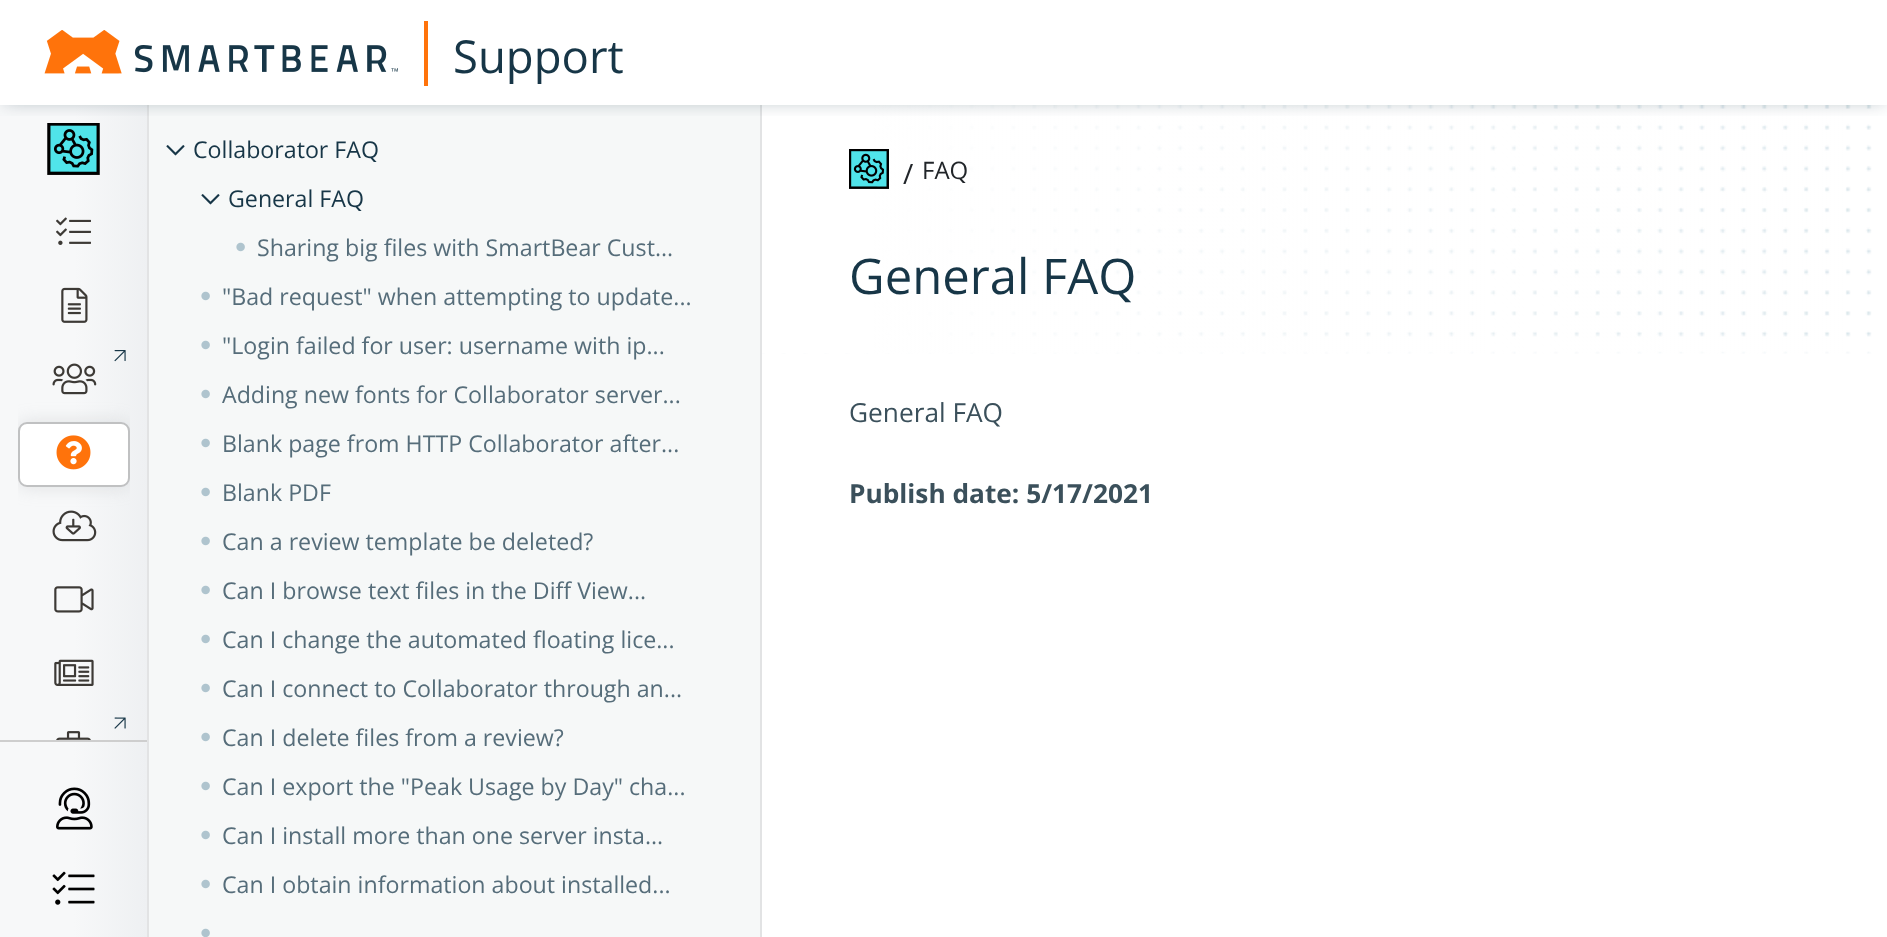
(async () => {
  const canvas = document.querySelector("canvas");
  canvas.width = 1887;
  canvas.height = 937;
  const ctx = canvas.getContext("2d");
  ctx.miterLimit = 4;
  ctx.fontKerning = "normal";
  async function loadImage(src) {
    const img = new Image();
    img.src = src;
    await img.decode();
    return img;
  }
  let gradient;

  ctx.fillStyle = "#ffffff";
  ctx.fillRect(0, 0, 1887, 937);
  gradient = ctx.createLinearGradient(0, 522, 149, 522);
  gradient.addColorStop(0.5, "#f7f8f9");
  gradient.addColorStop(1, "#eef0f2");
  ctx.fillStyle = gradient;
  ctx.fillRect(0, 105, 147, 635);
  ctx.fillStyle = "#e2e3e4";
  ctx.fillRect(147, 105, 2, 832);
  ctx.drawImage(await loadImage("img/2.png"), 47, 123, 53, 52);
  ctx.fillStyle = "#f6f8f8";
  ctx.fillRect(149, 105, 611, 832);
  ctx.fillStyle = "#e2e3e4";
  ctx.fillRect(760, 105, 2, 832);
  ctx.drawImage(await loadImage("img/18.png"), 762, 105, 1110, 249);
  ctx.save();
  ctx.beginPath();
  ctx.rect(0, 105, 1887, 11);
  ctx.clip();
  ctx.fillStyle = "rgba(23, 54, 71, 0.3)";
  ctx.filter = "blur(9px)";
  ctx.beginPath();
  ctx.rect(4, 4, 1881, 98);
  ctx.fill();
  ctx.filter = "none";
  ctx.restore();
  ctx.drawImage(await loadImage("img/1.png"), 44, 30, 354, 44);
  ctx.fillStyle = "#ff730b";
  ctx.fillRect(424, 21, 4, 65);
  ctx.drawImage(await loadImage("img/3.png"), 56, 217, 35, 28);
  ctx.drawImage(await loadImage("img/4.png"), 61, 287, 27, 36);
  ctx.drawImage(await loadImage("img/5.png"), 114, 350, 12, 12);
  ctx.drawImage(await loadImage("img/6.png"), 52, 363, 45, 32);
  ctx.save();
  ctx.beginPath();
  ctx.rect(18, 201, 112, 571);
  ctx.clip();
  ctx.fillStyle = "rgba(170, 173, 175, 0.3)";
  ctx.filter = "blur(9px)";
  ctx.beginPath();
  ctx.roundRect(18, 422, 112, 65, 9);
  ctx.fill();
  ctx.filter = "none";
  ctx.restore();
  ctx.fillStyle = "#ffffff";
  ctx.beginPath();
  ctx.roundRect(19, 423, 110, 63, 8);
  ctx.fill();
  ctx.strokeStyle = "#c0c1c2";
  ctx.lineWidth = 2;
  ctx.stroke();
  ctx.drawImage(await loadImage("img/7.png"), 56, 435, 35, 35);
  ctx.drawImage(await loadImage("img/8.png"), 52, 510, 45, 32);
  ctx.drawImage(await loadImage("img/9.png"), 54, 586, 40, 27);
  ctx.drawImage(await loadImage("img/10.png"), 54, 659, 40, 27);
  ctx.drawImage(await loadImage("img/11.png"), 114, 717, 12, 12);
  ctx.drawImage(await loadImage("img/12.png"), 56, 731, 35, 9);
  gradient = ctx.createLinearGradient(0, 840, 147, 840);
  gradient.addColorStop(0.5, "#f7f8f9");
  gradient.addColorStop(1, "#eef0f2");
  ctx.fillStyle = gradient;
  ctx.fillRect(0, 742, 147, 195);
  ctx.fillStyle = "#cecece";
  ctx.fillRect(0, 740, 147, 2);
  ctx.drawImage(await loadImage("img/13.png"), 56, 787, 37, 43);
  ctx.drawImage(await loadImage("img/14.png"), 52, 871, 43, 34);
  ctx.drawImage(await loadImage("img/15.png"), 166, 145, 19, 11);
  ctx.drawImage(await loadImage("img/15.png"), 201, 194, 19, 11);
  ctx.drawImage(await loadImage("img/16.png"), 236, 242, 9, 10);
  ctx.drawImage(await loadImage("img/16.png"), 201, 291, 9, 10);
  ctx.drawImage(await loadImage("img/16.png"), 201, 340, 9, 10);
  ctx.drawImage(await loadImage("img/16.png"), 201, 389, 9, 10);
  ctx.drawImage(await loadImage("img/16.png"), 201, 438, 9, 10);
  ctx.drawImage(await loadImage("img/16.png"), 201, 487, 9, 10);
  ctx.drawImage(await loadImage("img/16.png"), 201, 536, 9, 10);
  ctx.drawImage(await loadImage("img/16.png"), 201, 585, 9, 10);
  ctx.drawImage(await loadImage("img/16.png"), 201, 634, 9, 10);
  ctx.drawImage(await loadImage("img/16.png"), 201, 683, 9, 10);
  ctx.drawImage(await loadImage("img/16.png"), 201, 732, 9, 10);
  ctx.drawImage(await loadImage("img/16.png"), 201, 781, 9, 10);
  ctx.drawImage(await loadImage("img/16.png"), 201, 830, 9, 10);
  ctx.drawImage(await loadImage("img/16.png"), 201, 879, 9, 10);
  ctx.drawImage(await loadImage("img/17.png"), 201, 928, 9, 9);
  ctx.drawImage(await loadImage("img/19.png"), 849, 149, 40, 40);
  ctx.font = "45.5px Open Sans";
  ctx.fillStyle = "#173647";
  ctx.fillText("Support", 453, 73);
  ctx.font = "23.2px Open Sans";
  ctx.fillText("Collaborator FAQ", 193, 158);
  ctx.fillText("General FAQ", 228, 207);
  ctx.fillStyle = "#566d7a";
  for (const [text, x, y] of [
    ["Sharing big files with SmartBear Cust...", 257, 256],
    ["\"Bad request\" when attempting to update...", 222, 305],
    ["\"Login failed for user: username with ip...", 222, 354],
    ["Adding new fonts for Collaborator server...", 222, 403],
    ["Blank page from HTTP Collaborator after...", 222, 452],
    ["Blank PDF", 222, 501],
    ["Can a review template be deleted?", 222, 550],
    ["Can I browse text files in the Diff View...", 222, 599],
    ["Can I change the automated floating lice...", 222, 648],
    ["Can I connect to Collaborator through an...", 222, 697],
    ["Can I delete files from a review?", 222, 746],
    ["Can I export the \"Peak Usage by Day\" cha...", 222, 795],
    ["Can I install more than one server insta...", 222, 844],
    ["Can I obtain information about installed...", 222, 893],
  ]) {
    ctx.fillText(text, x, y);
  }
  ctx.font = "28px Open Sans";
  ctx.fillStyle = "#212529";
  ctx.fillText("/", 903, 184);
  ctx.font = "24px Open Sans";
  ctx.fillText("FAQ", 922, 179);
  ctx.font = "49px Open Sans";
  ctx.fillStyle = "#173647";
  ctx.fillText("General FAQ", 849, 294);
  ctx.font = "26.25px Open Sans";
  ctx.fillStyle = "#3b505b";
  ctx.fillText("General FAQ", 849, 422);
  ctx.font = "bold 26.25px Open Sans";
  ctx.fillText("Publish date: 5/17/2021", 849, 503);
})();
